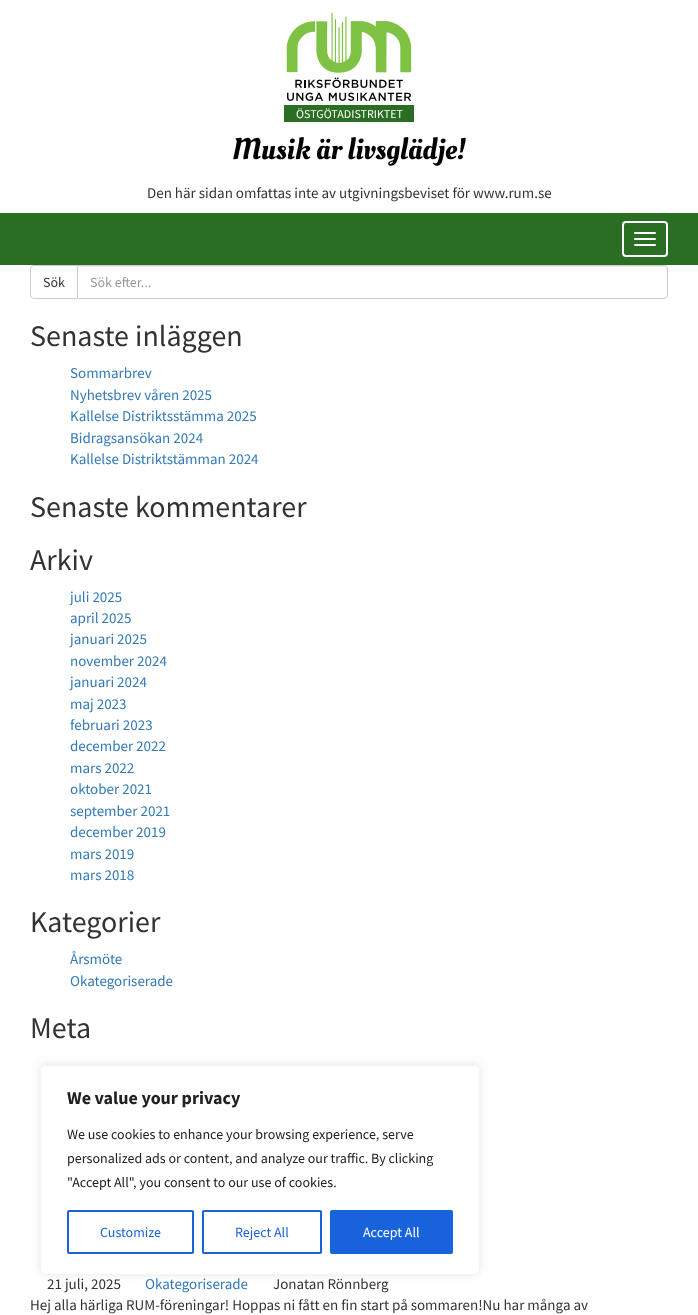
(async () => {
  const canvas = document.querySelector("canvas");
  canvas.width = 698;
  canvas.height = 1315;
  const ctx = canvas.getContext("2d");
  ctx.miterLimit = 4;
  ctx.fontKerning = "normal";
  async function loadImage(src) {
    const img = new Image();
    img.src = src;
    await img.decode();
    return img;
  }
  let path;

  ctx.fillStyle = "#ffffff";
  ctx.fillRect(0, 0, 698, 1315);
  ctx.drawImage(await loadImage("img/1.png"), 286, 12, 126, 89);
  ctx.fillStyle = "#296e23";
  ctx.fillRect(284, 105, 130, 17);
  ctx.fillRect(0, 213, 698, 52);
  ctx.beginPath();
  ctx.roundRect(623, 222, 44, 34, 3);
  ctx.strokeStyle = "#ffffff";
  ctx.lineWidth = 2;
  ctx.stroke();
  ctx.fillStyle = "#ffffff";
  ctx.beginPath();
  ctx.roundRect(634, 232, 22, 2, 1);
  ctx.fill();
  ctx.beginPath();
  ctx.roundRect(634, 238, 22, 2, 1);
  ctx.fill();
  ctx.beginPath();
  ctx.roundRect(634, 244, 22, 2, 1);
  ctx.fill();
  ctx.beginPath();
  ctx.roundRect(30.5, 265.5, 47, 33, [3.5, 0, 0, 3.5]);
  ctx.strokeStyle = "#cccccc";
  ctx.lineWidth = 1;
  ctx.stroke();
  ctx.beginPath();
  ctx.roundRect(77, 265, 591, 34, [0, 4, 4, 0]);
  ctx.fill();
  ctx.fillStyle = "#ececec";
  path = new Path2D("M78 267H664C666 267 667 268 667 270V269C667 267 666 266 664 266H78Z");
  ctx.fill(path);
  ctx.beginPath();
  ctx.roundRect(77.5, 265.5, 590, 33, [0, 3.5, 3.5, 0]);
  ctx.stroke();
  ctx.fillStyle = "rgba(172, 171, 171, 0.3)";
  ctx.filter = "blur(5px)";
  ctx.beginPath();
  ctx.roundRect(40, 1064, 440, 210, 6);
  ctx.fill();
  ctx.filter = "none";
  ctx.fillStyle = "#ffffff";
  ctx.beginPath();
  ctx.roundRect(40.5, 1065.5, 439, 209, 5.5);
  ctx.fill();
  ctx.strokeStyle = "#f4f4f4";
  ctx.stroke();
  ctx.beginPath();
  ctx.roundRect(68, 1211, 125, 42, 1);
  ctx.strokeStyle = "#1863dc";
  ctx.lineWidth = 2;
  ctx.stroke();
  ctx.beginPath();
  ctx.roundRect(203, 1211, 118, 42, 1);
  ctx.stroke();
  ctx.fillStyle = "#1863dc";
  ctx.beginPath();
  ctx.roundRect(331, 1211, 121, 42, 1);
  ctx.fill();
  ctx.stroke();
  ctx.font = "12px Source Sans Pro";
  ctx.fillStyle = "#ffffff";
  ctx.fillText("ÖSTGÖTADISTRIKTET", 296, 118);
  ctx.font = "30px Oleo Script";
  ctx.fillStyle = "#000000";
  ctx.fillText("Musik är livsglädje!", 232, 159);
  ctx.font = "15px Source Sans Pro";
  ctx.fillStyle = "#333333";
  ctx.fillText("Den här sidan omfattas inte av utgivningsbeviset för www.rum.se", 147, 198);
  ctx.font = "14px Source Sans Pro";
  ctx.fillText("Sök", 43, 287);
  ctx.fillStyle = "#999999";
  ctx.fillText("Sök efter...", 90, 287);
  ctx.font = "30px Source Sans Pro";
  ctx.fillStyle = "#333333";
  ctx.fillText("Senaste inläggen", 30, 346);
  ctx.font = "15px Source Sans Pro";
  ctx.fillStyle = "#337ab7";
  for (const [text, x, y] of [
    ["Sommarbrev", 70, 378],
    ["Nyhetsbrev våren 2025", 70, 400],
    ["Kallelse Distriktsstämma 2025", 70, 421],
    ["Bidragsansökan 2024", 70, 443],
    ["Kallelse Distriktstämman 2024", 70, 464],
  ]) {
    ctx.fillText(text, x, y);
  }
  ctx.font = "30px Source Sans Pro";
  ctx.fillStyle = "#333333";
  ctx.fillText("Senaste kommentarer", 30, 517);
  ctx.fillText("Arkiv", 30, 570);
  ctx.font = "15px Source Sans Pro";
  ctx.fillStyle = "#337ab7";
  for (const [text, x, y] of [
    ["juli 2025", 70, 602],
    ["april 2025", 70, 623],
    ["januari 2025", 70, 644],
    ["november 2024", 70, 666],
    ["januari 2024", 70, 687],
    ["maj 2023", 70, 709],
    ["februari 2023", 70, 730],
    ["december 2022", 70, 751],
    ["mars 2022", 70, 773],
    ["oktober 2021", 70, 794],
    ["september 2021", 70, 816],
    ["december 2019", 70, 837],
    ["mars 2019", 70, 859],
    ["mars 2018", 70, 880],
  ]) {
    ctx.fillText(text, x, y);
  }
  ctx.font = "30px Source Sans Pro";
  ctx.fillStyle = "#333333";
  ctx.fillText("Kategorier", 30, 932);
  ctx.font = "15px Source Sans Pro";
  ctx.fillStyle = "#337ab7";
  ctx.fillText("Årsmöte", 70, 964);
  ctx.fillText("Okategoriserade", 70, 986);
  ctx.font = "30px Source Sans Pro";
  ctx.fillStyle = "#333333";
  ctx.fillText("Meta", 30, 1038);
  ctx.font = "15px Source Sans Pro";
  ctx.fillText("21 juli, 2025", 47, 1289);
  ctx.fillStyle = "#337ab7";
  ctx.fillText("Okategoriserade", 145, 1289);
  ctx.fillStyle = "#333333";
  ctx.fillText("Jonatan Rönnberg", 273, 1289);
  ctx.fillText("Hej alla härliga RUM-föreningar! Hoppas ni fått en fin start på sommaren!Nu har många av", 30, 1310);
  ctx.font = "bold 18px Source Sans Pro";
  ctx.fillStyle = "#212121";
  ctx.fillText("We value your privacy", 67, 1104);
  ctx.font = "14px Source Sans Pro";
  for (const [text, x, y] of [
    ["We use cookies to enhance your browsing experience, serve", 67, 1139],
    ["personalized ads or content, and analyze our traffic. By clicking", 67, 1163],
    ["\"Accept All\", you consent to our use of cookies.", 67, 1187],
  ]) {
    ctx.fillText(text, x, y);
  }
  ctx.fillStyle = "#1863dc";
  ctx.fillText("Customize", 100, 1237);
  ctx.fillText("Reject All", 235, 1237);
  ctx.fillStyle = "#ffffff";
  ctx.fillText("Accept All", 363, 1237);
})();
